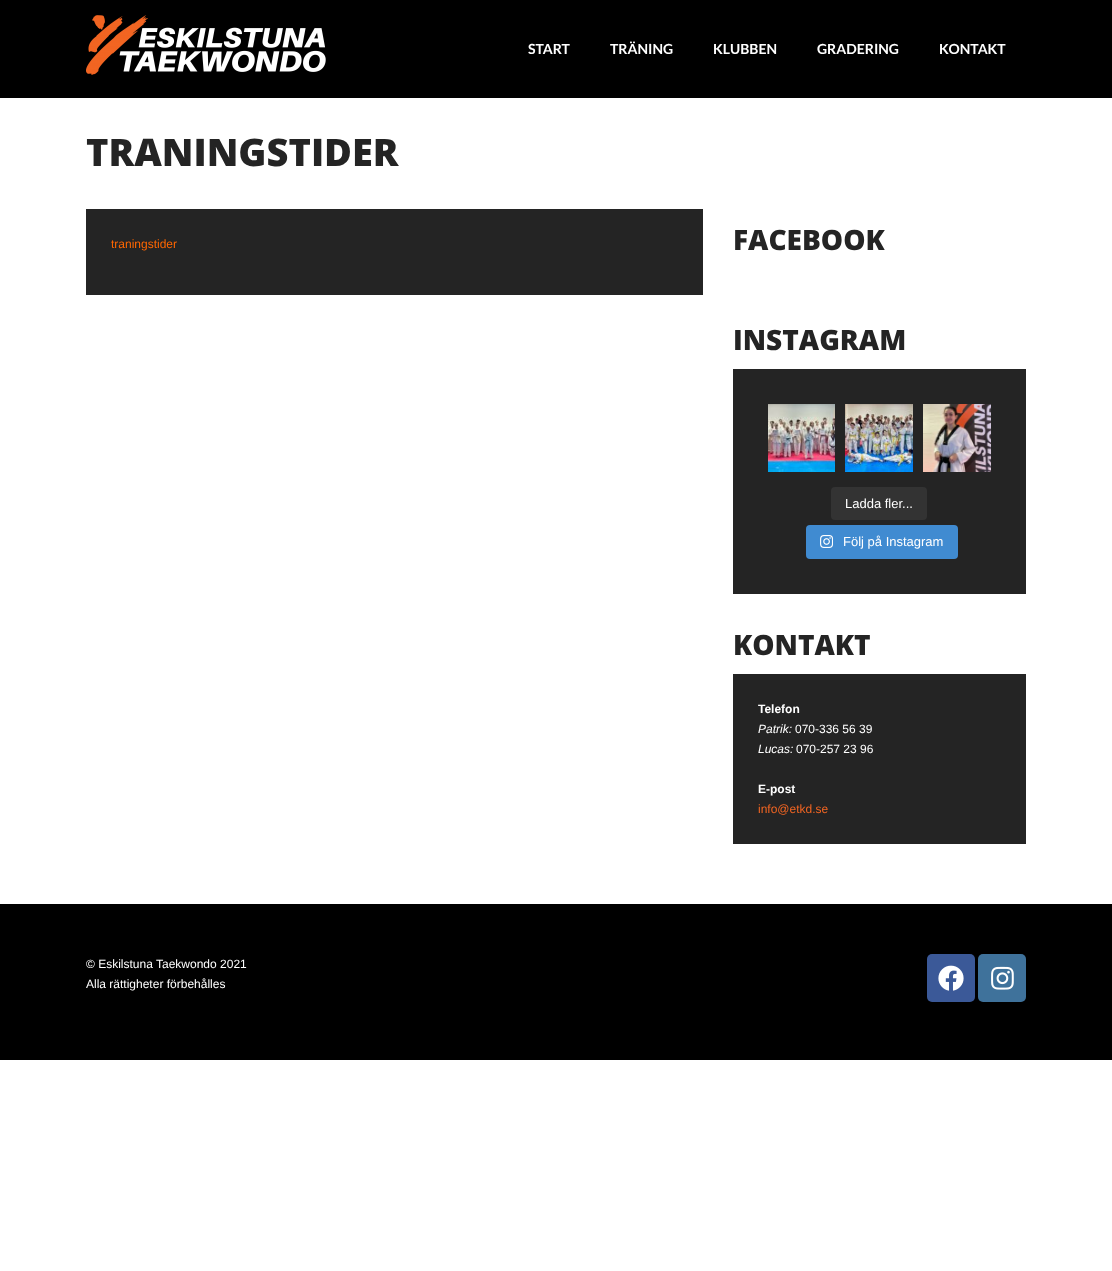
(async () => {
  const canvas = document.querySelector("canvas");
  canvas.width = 1112;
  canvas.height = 1271;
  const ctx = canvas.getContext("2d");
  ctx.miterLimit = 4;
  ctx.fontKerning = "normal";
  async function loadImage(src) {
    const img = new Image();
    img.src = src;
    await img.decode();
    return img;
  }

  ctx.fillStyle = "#ffffff";
  ctx.fillRect(0, 0, 1112, 1271);
  ctx.fillStyle = "#000000";
  ctx.fillRect(0, 0, 1112, 98);
  ctx.drawImage(await loadImage("img/1.png"), 86, 15, 240, 60);
  ctx.fillStyle = "#242424";
  ctx.fillRect(86, 209, 617, 86);
  ctx.fillRect(733, 369, 293, 225);
  ctx.drawImage(await loadImage("img/2.png"), 768, 404, 67, 68);
  ctx.drawImage(await loadImage("img/3.png"), 845, 404, 68, 68);
  ctx.drawImage(await loadImage("img/4.png"), 923, 404, 68, 68);
  ctx.fillStyle = "#333333";
  ctx.beginPath();
  ctx.roundRect(831, 487, 96, 33, 4);
  ctx.fill();
  ctx.fillStyle = "#408bd1";
  ctx.beginPath();
  ctx.roundRect(806, 525, 152, 34, 4);
  ctx.fill();
  ctx.drawImage(await loadImage("img/5.png"), 820, 535, 13, 13);
  ctx.fillStyle = "#242424";
  ctx.fillRect(733, 674, 293, 170);
  ctx.fillStyle = "#000000";
  ctx.fillRect(0, 904, 1112, 156);
  ctx.fillStyle = "#3b5998";
  ctx.beginPath();
  ctx.roundRect(927, 954, 48, 48, 5);
  ctx.fill();
  ctx.drawImage(await loadImage("img/6.png"), 938, 965, 26, 26);
  ctx.fillStyle = "#3f729b";
  ctx.beginPath();
  ctx.roundRect(978, 954, 48, 48, 5);
  ctx.fill();
  ctx.drawImage(await loadImage("img/7.png"), 991, 966, 23, 24);
  ctx.font = "bold 14px Lato";
  ctx.fillStyle = "#ffffff";
  for (const [text, x, y] of [
    ["START", 528, 54],
    ["TRÄNING", 610, 54],
    ["KLUBBEN", 713, 54],
    ["GRADERING", 817, 54],
    ["KONTAKT", 939, 54],
  ]) {
    ctx.fillText(text, x, y);
  }
  ctx.font = "800 38px Open Sans";
  ctx.fillStyle = "#242424";
  ctx.fillText("TRANINGSTIDER", 86, 166);
  ctx.font = "12px Liberation Sans";
  ctx.fillStyle = "#ff6600";
  ctx.fillText("traningstider", 111, 248);
  ctx.font = "800 28px Open Sans";
  ctx.fillStyle = "#242424";
  ctx.fillText("FACEBOOK", 733, 250);
  ctx.fillText("INSTAGRAM", 733, 350);
  ctx.font = "13px Liberation Sans";
  ctx.fillStyle = "#ffffff";
  ctx.fillText("Ladda fler...", 845, 508);
  ctx.fillText("Följ på Instagram", 843, 546);
  ctx.font = "800 28px Open Sans";
  ctx.fillStyle = "#242424";
  ctx.fillText("KONTAKT", 733, 655);
  ctx.font = "bold 12px Liberation Sans";
  ctx.fillStyle = "#ffffff";
  ctx.fillText("Telefon", 758, 713);
  ctx.font = "italic 12px Liberation Sans";
  ctx.fillText("Patrik:", 758, 733);
  ctx.font = "12px Liberation Sans";
  ctx.fillText("070-336 56 39", 795, 733);
  ctx.font = "italic 12px Liberation Sans";
  ctx.fillText("Lucas:", 758, 753);
  ctx.font = "12px Liberation Sans";
  ctx.fillText("070-257 23 96", 796, 753);
  ctx.font = "bold 12px Liberation Sans";
  ctx.fillText("E-post", 758, 793);
  ctx.font = "12px Liberation Sans";
  ctx.fillStyle = "#f26522";
  ctx.fillText("info@etkd.se", 758, 813);
  ctx.fillStyle = "#ffffff";
  ctx.fillText("© Eskilstuna Taekwondo 2021", 86, 968);
  ctx.fillText("Alla rättigheter förbehålles", 86, 988);
})();
